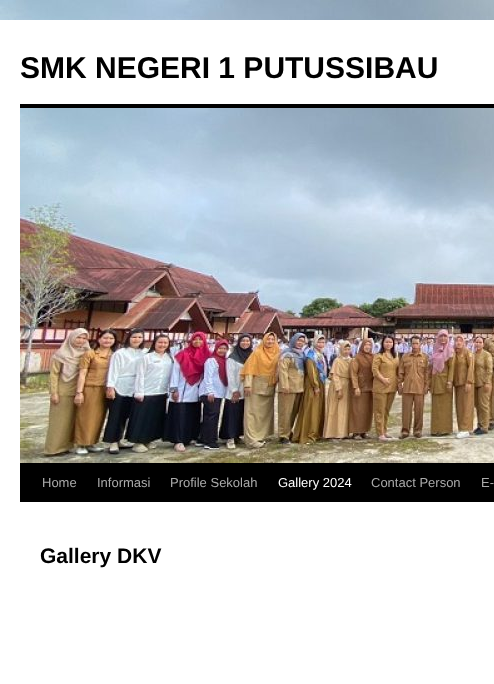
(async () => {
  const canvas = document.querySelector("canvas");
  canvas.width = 494;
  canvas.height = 684;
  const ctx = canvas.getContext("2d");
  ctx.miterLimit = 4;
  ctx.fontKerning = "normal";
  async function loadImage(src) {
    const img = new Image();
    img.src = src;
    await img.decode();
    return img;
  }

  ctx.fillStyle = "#ffffff";
  ctx.fillRect(0, 0, 494, 684);
  ctx.drawImage(await loadImage("img/1.png"), 0, 0, 494, 20);
  ctx.fillStyle = "#000000";
  ctx.fillRect(20, 104, 474, 4);
  ctx.fillRect(20, 463, 474, 39);
  ctx.drawImage(await loadImage("img/2.png"), 20, 108, 474, 355);
  ctx.font = "bold 30px Liberation Sans";
  ctx.fillText("SMK NEGERI 1 PUTUSSIBAU", 20, 78);
  ctx.font = "13px Liberation Sans";
  ctx.fillStyle = "#aaaaaa";
  for (const [text, x, y] of [
    ["Home", 42, 487],
    ["Informasi", 97, 487],
    ["Profile Sekolah", 170, 487],
  ]) {
    ctx.fillText(text, x, y);
  }
  ctx.fillStyle = "#ffffff";
  ctx.fillText("Gallery 2024", 278, 487);
  ctx.fillStyle = "#aaaaaa";
  ctx.fillText("Contact Person", 371, 487);
  ctx.fillText("E-", 481, 487);
  ctx.font = "bold 21px Liberation Sans";
  ctx.fillStyle = "#000000";
  ctx.fillText("Gallery DKV", 40, 563);
})();
